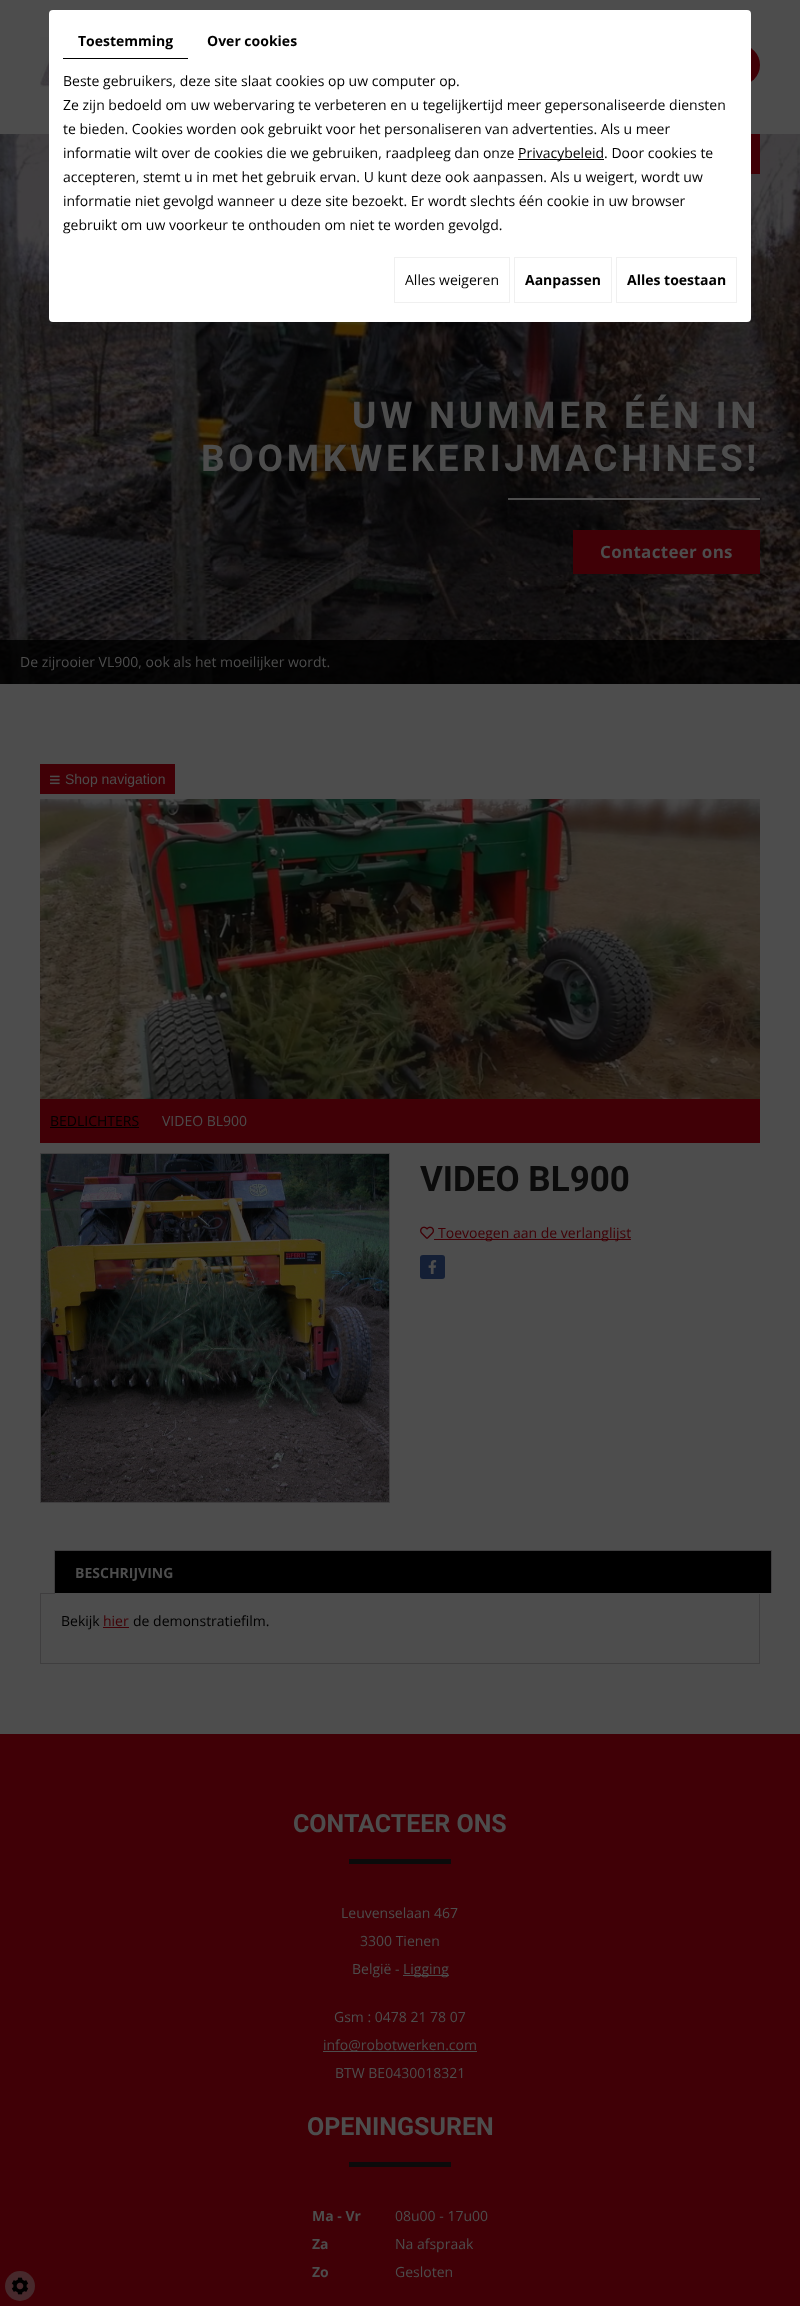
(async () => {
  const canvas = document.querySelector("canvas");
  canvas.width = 800;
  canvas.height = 2306;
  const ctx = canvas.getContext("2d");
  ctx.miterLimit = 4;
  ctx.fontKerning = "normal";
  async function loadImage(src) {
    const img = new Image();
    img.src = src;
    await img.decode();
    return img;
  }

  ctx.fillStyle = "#4d4d4d";
  ctx.fillRect(0, 0, 800, 2306);
  ctx.fillStyle = "#400006";
  ctx.beginPath();
  ctx.arc(740, 65, 20, 0, Math.PI * 2);
  ctx.fill();
  ctx.drawImage(await loadImage("img/2.png"), 0, 134, 800, 550);
  ctx.fillStyle = "#ffffff";
  ctx.beginPath();
  ctx.roundRect(49, 10, 702, 312, 4);
  ctx.fill();
  ctx.fillStyle = "#000000";
  ctx.fillRect(63, 58, 125, 1);
  ctx.fillRect(518, 159, 86, 1);
  ctx.strokeStyle = "#f0f0f0";
  ctx.strokeRect(394.5, 257.5, 115, 45);
  ctx.strokeRect(514.5, 257.5, 97, 45);
  ctx.strokeRect(616.5, 257.5, 120, 45);
  ctx.drawImage(await loadImage("img/1.png"), 40, 37, 9, 50);
  for (const [x, y, w, h, color] of [
    [751, 134, 9, 40, "#400006"],
    [508, 498, 252, 2, "#4d4d4d"],
    [573, 530, 187, 44, "#400006"],
    [0, 640, 800, 44, "rgba(0, 0, 0, 0.8)"],
    [40, 764, 135, 30, "#400006"],
  ]) {
    ctx.fillStyle = color;
    ctx.fillRect(x, y, w, h);
  }
  ctx.drawImage(await loadImage("img/3.png"), 50, 775, 10, 10);
  ctx.drawImage(await loadImage("img/4.png"), 40, 799, 720, 300);
  ctx.fillRect(40, 1099, 720, 44);
  ctx.fillStyle = "#000000";
  ctx.fillRect(50, 1127, 89, 1);
  ctx.strokeStyle = "#3f3e3f";
  ctx.strokeRect(40.5, 1153.5, 349, 349);
  ctx.drawImage(await loadImage("img/5.png"), 41, 1154, 348, 348);
  ctx.drawImage(await loadImage("img/6.png"), 420, 1226, 14, 13);
  ctx.fillStyle = "#400006";
  ctx.fillRect(434, 1239, 197, 1);
  ctx.fillStyle = "#141f35";
  ctx.beginPath();
  ctx.roundRect(420, 1255, 25, 24, 3);
  ctx.fill();
  ctx.drawImage(await loadImage("img/7.png"), 428, 1260, 9, 14);
  for (const [x, y, w, h, color] of [
    [55, 1551, 716, 42, "#000000"],
    [54, 1550, 718, 1, "#3f3e3f"],
    [771, 1550, 1, 44, "#3f3e3f"],
  ]) {
    ctx.fillStyle = color;
    ctx.fillRect(x, y, w, h);
  }
  ctx.strokeRect(40.5, 1593.5, 719, 70);
  for (const [x, y, w, h, color] of [
    [54, 1593, 718, 1, "#4d4d4d"],
    [54, 1550, 1, 44, "#3f3e3f"],
    [103, 1627, 26, 1, "#400006"],
    [0, 1734, 800, 572, "#400006"],
    [349, 1859, 102, 5, "#0b0b0b"],
    [403, 1975, 46, 1, "#4d4d4d"],
    [323, 2051, 154, 1, "#4d4d4d"],
    [349, 2162, 102, 5, "#0b0b0b"],
  ]) {
    ctx.fillStyle = color;
    ctx.fillRect(x, y, w, h);
  }
  ctx.fillStyle = "#47292c";
  ctx.beginPath();
  ctx.arc(20, 2286, 15, 0, Math.PI * 2);
  ctx.fill();
  ctx.drawImage(await loadImage("img/8.png"), 11, 2277, 18, 18);
  ctx.font = "bold 14px Open Sans";
  ctx.fillStyle = "#000000";
  ctx.fillText("Toestemming", 78, 46);
  ctx.fillText("Over cookies", 207, 46);
  ctx.font = "14px Open Sans";
  for (const [text, x, y] of [
    ["Beste gebruikers, deze site slaat cookies op uw computer op.", 63, 86],
    ["Ze zijn bedoeld om uw webervaring te verbeteren en u tegelijkertijd meer gepersonaliseerde diensten", 63, 110],
    ["te bieden. Cookies worden ook gebruikt voor het personaliseren van advertenties. Als u meer", 63, 134],
    ["informatie wilt over de cookies die we gebruiken, raadpleeg dan onze", 63, 158],
    ["Privacybeleid. Door cookies te", 518, 158],
    ["accepteren, stemt u in met het gebruik ervan. U kunt deze ook aanpassen. Als u weigert, wordt uw", 63, 182],
    ["informatie niet gevolgd wanneer u deze site bezoekt. Er wordt slechts één cookie in uw browser", 63, 206],
    ["gebruikt om uw voorkeur te onthouden om niet te worden gevolgd.", 63, 230],
    ["Alles weigeren", 405, 285],
  ]) {
    ctx.fillText(text, x, y);
  }
  ctx.font = "bold 14px Open Sans";
  ctx.fillText("Aanpassen", 525, 285);
  ctx.fillText("Alles toestaan", 627, 285);
  ctx.letterSpacing = "3.7px";
  ctx.font = "bold 37px Roboto";
  ctx.fillStyle = "#4d4d4d";
  ctx.fillText("UW NUMMER ÉÉN IN", 352, 428);
  ctx.fillText("BOOMKWEKERIJMACHINES!", 201, 471);
  ctx.letterSpacing = "0.3px";
  ctx.font = "bold 17px Open Sans";
  ctx.fillText("Contacteer ons", 600, 558);
  ctx.letterSpacing = "0px";
  ctx.font = "14px Open Sans";
  ctx.fillText("De zijrooier VL900, ook als het moeilijker wordt.", 20, 667);
  ctx.font = "14px Liberation Sans";
  ctx.fillText("Shop navigation", 65, 784);
  ctx.font = "14px Open Sans";
  ctx.fillStyle = "#000000";
  ctx.fillText("BEDLICHTERS", 50, 1126);
  ctx.fillStyle = "#4d4d4d";
  ctx.fillText("VIDEO BL900", 162, 1126);
  ctx.font = "bold 35px Roboto";
  ctx.fillStyle = "#0b0b0b";
  ctx.fillText("VIDEO BL900", 420, 1191);
  ctx.font = "14px Open Sans";
  ctx.fillStyle = "#400006";
  ctx.fillText("Toevoegen aan de verlanglijst", 438, 1238);
  ctx.font = "bold 14px Open Sans";
  ctx.fillStyle = "#4d4d4d";
  ctx.fillText("BESCHRIJVING", 75, 1578);
  ctx.font = "14px Open Sans";
  ctx.fillStyle = "#000000";
  ctx.fillText("Bekijk", 61, 1626);
  ctx.fillStyle = "#400006";
  ctx.fillText("hier", 103, 1626);
  ctx.fillStyle = "#000000";
  ctx.fillText("de demonstratiefilm.", 133, 1626);
  ctx.font = "bold 25px Roboto";
  ctx.fillStyle = "#4d4d4d";
  ctx.fillText("CONTACTEER ONS", 293, 1832);
  ctx.font = "14px Open Sans";
  for (const [text, x, y] of [
    ["Leuvenselaan 467", 341, 1918],
    ["3300 Tienen", 360, 1946],
    ["België -", 352, 1974],
    ["Ligging", 403, 1974],
    ["Gsm : 0478 21 78 07", 334, 2022],
    ["info@robotwerken.com", 323, 2050],
    ["BTW BE0430018321", 335, 2078],
  ]) {
    ctx.fillText(text, x, y);
  }
  ctx.font = "bold 25px Roboto";
  ctx.fillText("OPENINGSUREN", 307, 2135);
  ctx.font = "bold 14px Open Sans";
  ctx.fillText("Ma - Vr", 312, 2221);
  ctx.font = "14px Open Sans";
  ctx.fillText("08u00 - 17u00", 395, 2221);
  ctx.font = "bold 14px Open Sans";
  ctx.fillText("Za", 312, 2249);
  ctx.font = "14px Open Sans";
  ctx.fillText("Na afspraak", 395, 2249);
  ctx.font = "bold 14px Open Sans";
  ctx.fillText("Zo", 312, 2277);
  ctx.font = "14px Open Sans";
  ctx.fillText("Gesloten", 395, 2277);
})();
